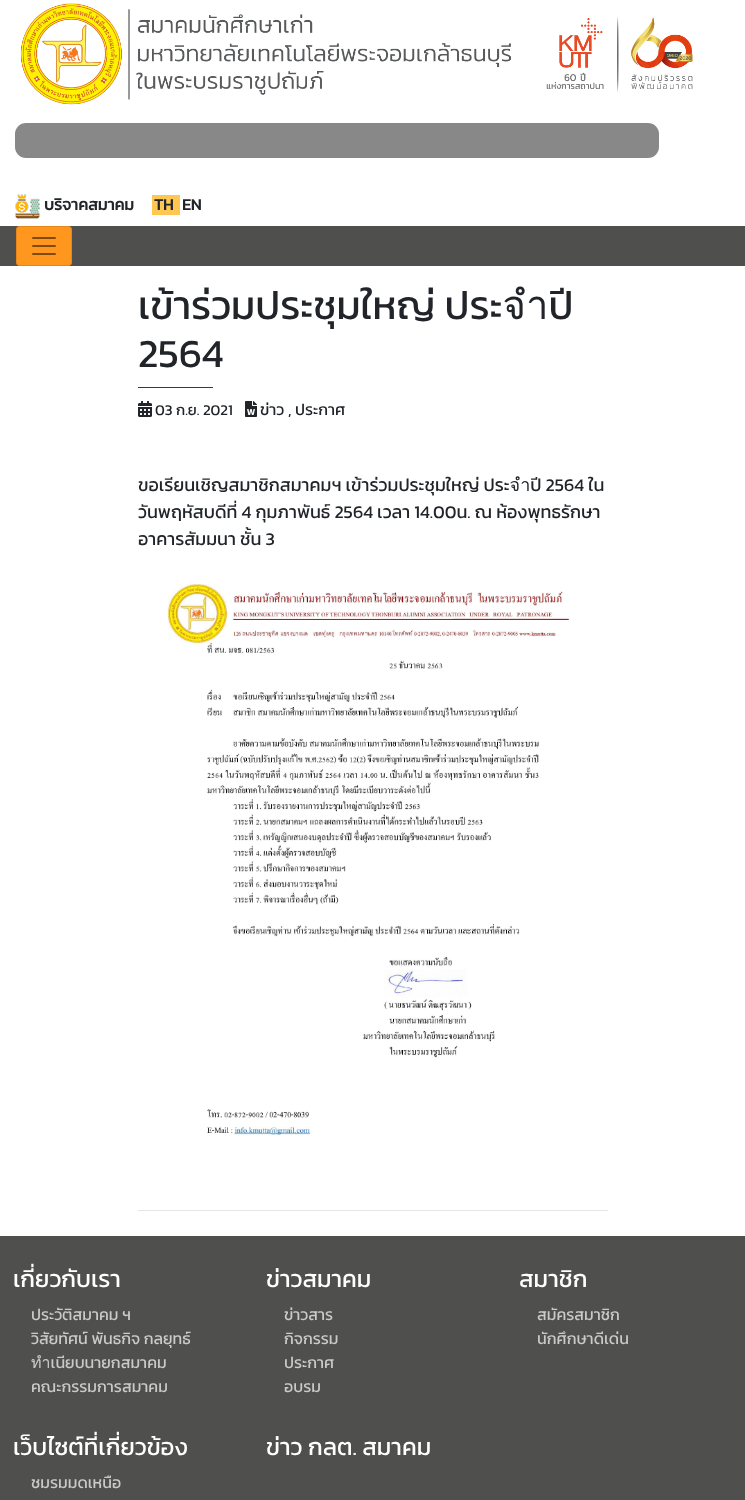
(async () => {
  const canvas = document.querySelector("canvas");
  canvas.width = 745;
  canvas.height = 1500;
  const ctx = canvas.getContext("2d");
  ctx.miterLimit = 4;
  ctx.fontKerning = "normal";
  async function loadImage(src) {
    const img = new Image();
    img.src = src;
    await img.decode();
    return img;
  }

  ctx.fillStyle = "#ffffff";
  ctx.fillRect(0, 0, 745, 1500);
  ctx.drawImage(await loadImage("img/1.png"), 20, 3, 673, 102);
  ctx.fillStyle = "#898888";
  ctx.beginPath();
  ctx.roundRect(15, 123, 644, 35, 11);
  ctx.fill();
  ctx.drawImage(await loadImage("img/2.png"), 15, 194, 25, 25);
  ctx.fillStyle = "#ffc751";
  ctx.fillRect(152, 195, 28, 20);
  ctx.fillStyle = "#4f4f4e";
  ctx.fillRect(0, 226, 745, 40);
  ctx.fillStyle = "#ff971e";
  ctx.beginPath();
  ctx.roundRect(16, 226, 56, 40, 4);
  ctx.fill();
  ctx.beginPath();
  ctx.roundRect(16.5, 226.5, 55, 39, 3.5);
  ctx.strokeStyle = "rgba(0, 0, 0, 0.1)";
  ctx.stroke();
  ctx.drawImage(await loadImage("img/3.png"), 32, 237, 24, 18);
  ctx.fillStyle = "#343a41";
  ctx.fillRect(138, 387, 75, 1);
  ctx.drawImage(await loadImage("img/4.png"), 138, 401, 14, 16);
  ctx.drawImage(await loadImage("img/5.png"), 245, 401, 12, 16);
  ctx.drawImage(await loadImage("img/6.png"), 167, 584, 403, 552);
  ctx.fillStyle = "#e6e6e6";
  ctx.fillRect(138, 1210, 470, 1);
  ctx.fillStyle = "#4f4f4e";
  ctx.fillRect(0, 1236, 745, 264);
  ctx.font = "bold 16px Kanit";
  ctx.fillStyle = "#212529";
  for (const [text, x, y] of [
    ["บริจาคสมาคม", 44, 210],
    ["TH", 154, 210],
    ["EN", 182, 210],
  ]) {
    ctx.fillText(text, x, y);
  }
  ctx.font = "40px Kanit";
  ctx.fillText("เข้าร่วมประชุมใหญ่ ประจำปี", 138, 319);
  ctx.fillText("2564", 138, 367);
  ctx.font = "15px Kanit";
  ctx.fillText("03 ก.ย. 2021", 155, 415);
  ctx.font = "16px Kanit";
  ctx.fillText("ข่าว , ประกาศ", 260, 415);
  ctx.font = "18px Kanit";
  ctx.fillText("ขอเรียนเชิญสมาชิกสมาคมฯ เข้าร่วมประชุมใหญ่ ประจำปี 2564 ใน", 138, 491);
  ctx.save();
  ctx.beginPath();
  ctx.rect(138, 473, 470, 721);
  ctx.clip();
  ctx.fillText("วันพฤหัสบดีที่ 4 กุมภาพันธ์ 2564 เวลา 14.00น. ณ ห้องพุทธรักษา", 138, 518);
  ctx.restore();
  ctx.fillText("อาคารสัมมนา ชั้น 3", 138, 545);
  ctx.font = "24px Kanit";
  ctx.fillStyle = "#ffffff";
  ctx.fillText("เกี่ยวกับเรา", 13, 1287);
  ctx.font = "16px Kanit";
  ctx.fillStyle = "#cacaca";
  for (const [text, x, y] of [
    ["ประวัติสมาคม ฯ", 31, 1320],
    ["วิสัยทัศน์ พันธกิจ กลยุทธ์", 31, 1344],
    ["ทำเนียบนายกสมาคม", 31, 1368],
    ["คณะกรรมการสมาคม", 31, 1392],
  ]) {
    ctx.fillText(text, x, y);
  }
  ctx.font = "24px Kanit";
  ctx.fillStyle = "#ffffff";
  ctx.fillText("ข่าวสมาคม", 266, 1287);
  ctx.font = "16px Kanit";
  ctx.fillStyle = "#cacaca";
  for (const [text, x, y] of [
    ["ข่าวสาร", 284, 1320],
    ["กิจกรรม", 284, 1344],
    ["ประกาศ", 284, 1368],
    ["อบรม", 284, 1392],
  ]) {
    ctx.fillText(text, x, y);
  }
  ctx.font = "24px Kanit";
  ctx.fillStyle = "#ffffff";
  ctx.fillText("สมาชิก", 519, 1287);
  ctx.font = "16px Kanit";
  ctx.fillStyle = "#cacaca";
  ctx.fillText("สมัครสมาชิก", 537, 1320);
  ctx.fillText("นักศึกษาดีเด่น", 537, 1344);
  ctx.font = "24px Kanit";
  ctx.fillStyle = "#ffffff";
  ctx.fillText("เว็บไซต์ที่เกี่ยวข้อง", 13, 1455);
  ctx.font = "16px Kanit";
  ctx.fillStyle = "#cacaca";
  ctx.fillText("ชมรมมดเหนือ", 31, 1488);
  ctx.font = "24px Kanit";
  ctx.fillStyle = "#ffffff";
  ctx.fillText("ข่าว กลต. สมาคม", 266, 1455);
})();
